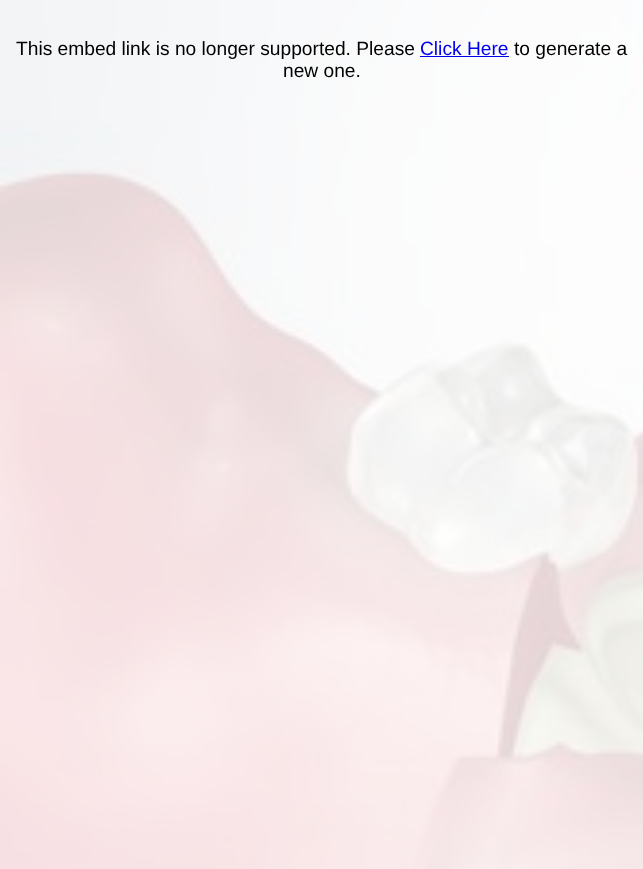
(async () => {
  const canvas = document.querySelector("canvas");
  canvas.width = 643;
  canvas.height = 869;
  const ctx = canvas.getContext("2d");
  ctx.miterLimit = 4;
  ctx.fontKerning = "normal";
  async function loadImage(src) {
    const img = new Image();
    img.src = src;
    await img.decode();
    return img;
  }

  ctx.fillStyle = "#ffffff";
  ctx.fillRect(0, 0, 643, 869);
  ctx.drawImage(await loadImage("img/1.png"), 0, 0, 643, 869);
  ctx.fillStyle = "#0000ee";
  ctx.fillRect(420, 56, 89, 1);
  ctx.font = "19.2px Liberation Sans";
  ctx.fillStyle = "#000000";
  ctx.fillText("This embed link is no longer supported. Please", 16, 55);
  ctx.fillStyle = "#0000ee";
  ctx.fillText("Click Here", 420, 55);
  ctx.fillStyle = "#000000";
  ctx.fillText("to generate a", 514, 55);
  ctx.fillText("new one.", 283, 77);
})();
